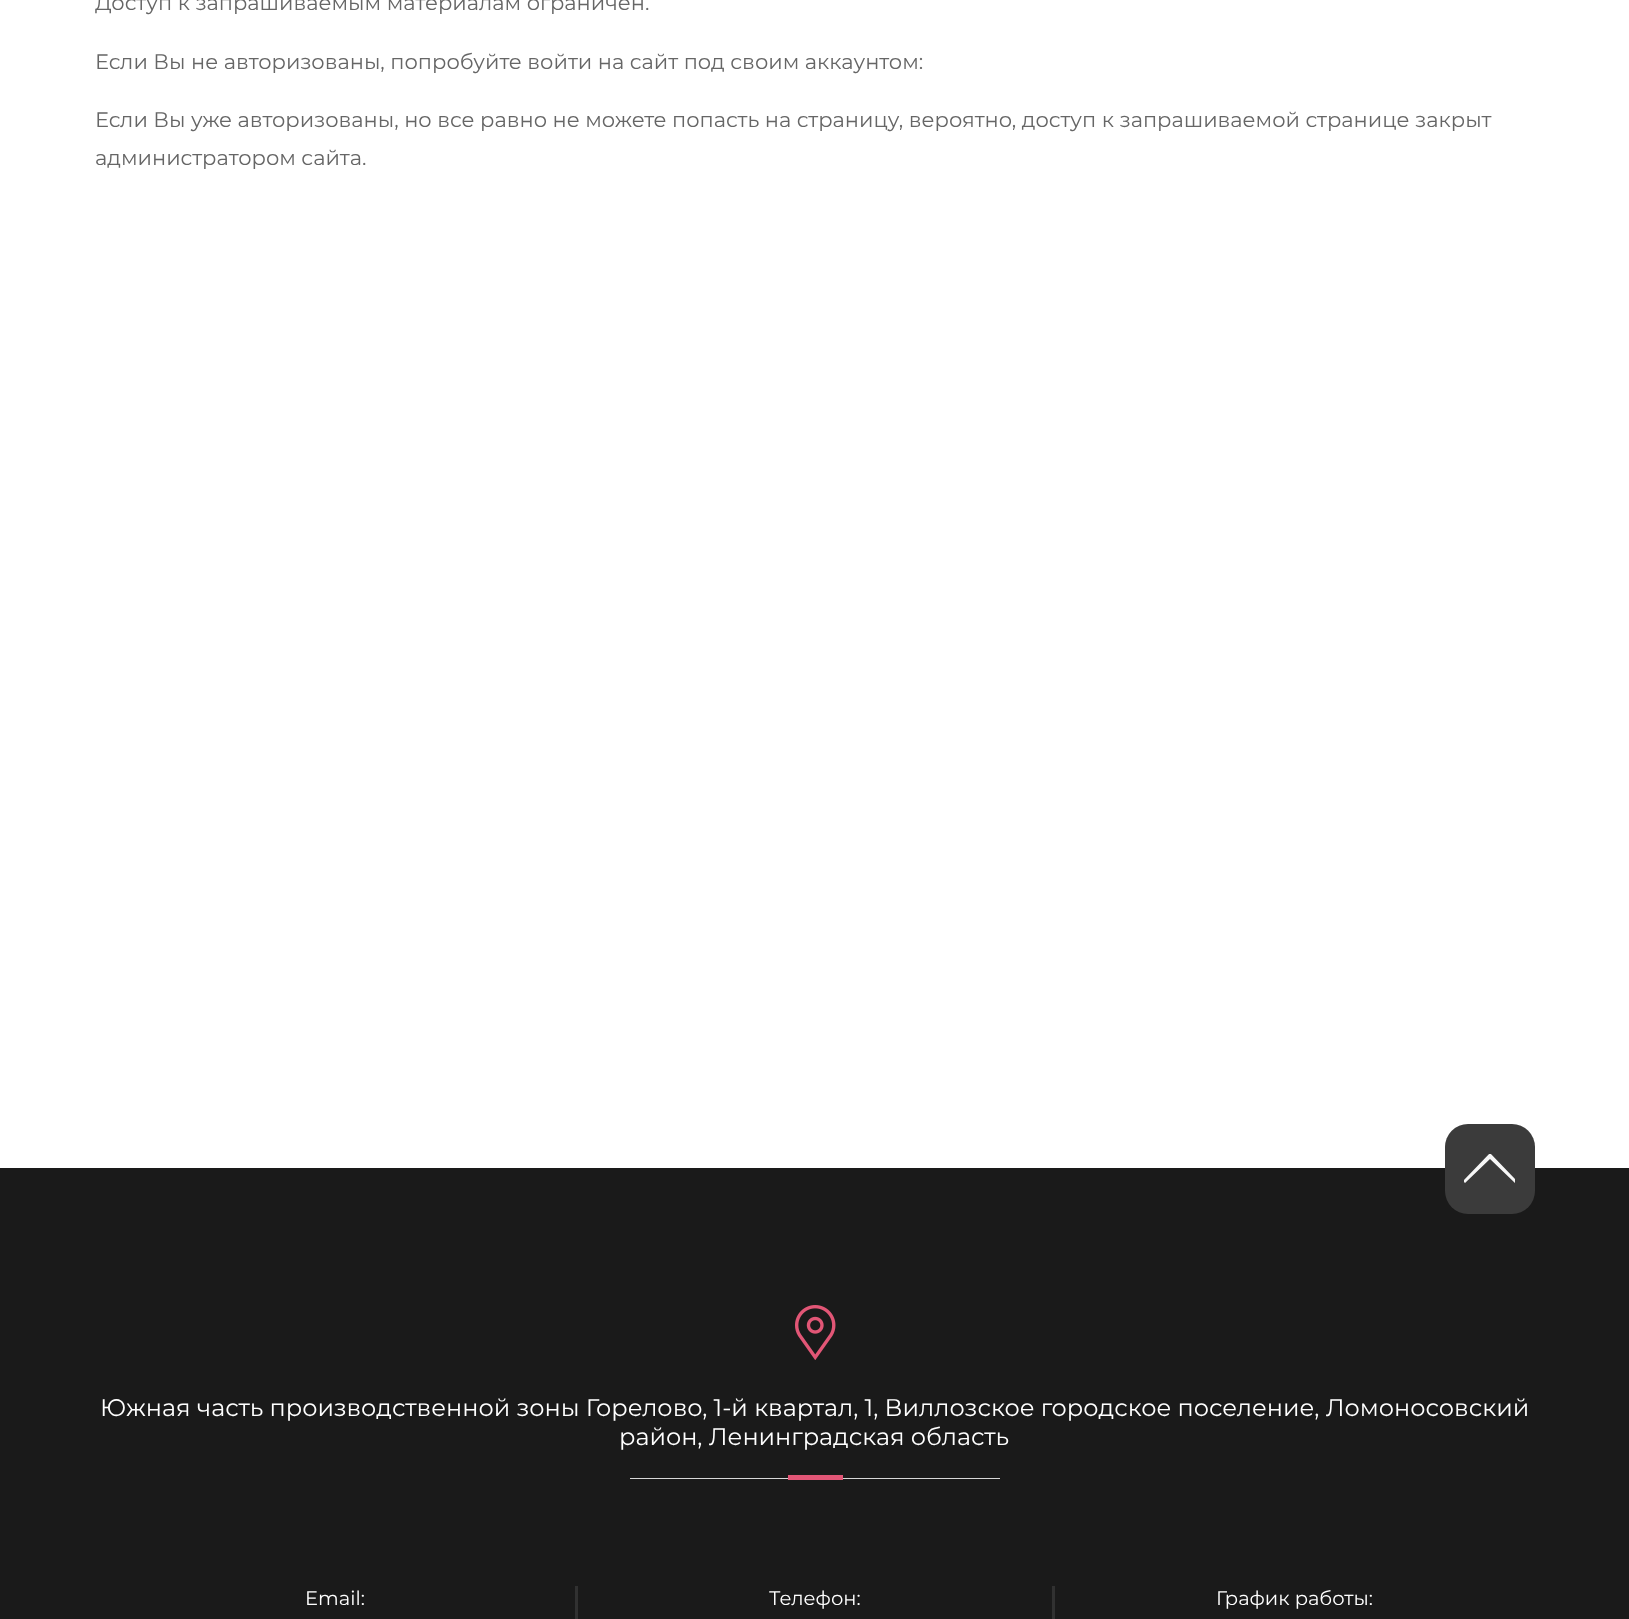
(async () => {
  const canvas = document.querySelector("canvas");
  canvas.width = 1629;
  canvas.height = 1619;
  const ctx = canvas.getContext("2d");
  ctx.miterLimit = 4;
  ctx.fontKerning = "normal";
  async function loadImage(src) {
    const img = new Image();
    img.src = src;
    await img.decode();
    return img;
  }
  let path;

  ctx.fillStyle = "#ffffff";
  ctx.fillRect(0, 0, 1629, 1619);
  ctx.fillStyle = "#1a1a1a";
  ctx.fillRect(0, 1168, 1629, 451);
  ctx.fillStyle = "#3b3b3b";
  ctx.beginPath();
  ctx.roundRect(1445, 1124, 90, 90, 23);
  ctx.fill();
  ctx.save();
  ctx.beginPath();
  ctx.rect(1464, 1154, 51, 30);
  ctx.clip();
  ctx.fillStyle = "#f7f7f7";
  path = new Path2D("M1490 1159L1515 1183L1517 1181L1490 1153L1463 1181L1465 1183Z");
  ctx.fill(path, "evenodd");
  ctx.restore();
  ctx.fillStyle = "#d7d7d7";
  ctx.fillRect(630, 1478, 370, 1);
  ctx.fillStyle = "#e25676";
  ctx.fillRect(788, 1475, 55, 5);
  ctx.drawImage(await loadImage("img/1.png"), 795, 1305, 41, 55);
  ctx.fillStyle = "#313131";
  ctx.fillRect(1052, 1586, 3, 33);
  ctx.fillRect(575, 1586, 3, 33);
  ctx.font = "21px Montserrat";
  ctx.fillStyle = "#666666";
  for (const [text, x, y] of [
    ["Доступ к запрашиваемым материалам ограничен.", 95, 10],
    ["Если Вы не авторизованы, попробуйте войти на сайт под своим аккаунтом:", 95, 69],
    ["Если Вы уже авторизованы, но все равно не можете попасть на страницу, вероятно, доступ к запрашиваемой странице закрыт", 95, 127],
    ["администратором сайта.", 95, 165],
  ]) {
    ctx.fillText(text, x, y);
  }
  ctx.font = "24px Montserrat";
  ctx.fillStyle = "#ffffff";
  ctx.fillText("Южная часть производственной зоны Горелово, 1-й квартал, 1, Виллозское городское поселение, Ломоносовский", 100, 1416);
  ctx.fillText("район, Ленинградская область", 619, 1445);
  ctx.font = "19.5px Montserrat";
  for (const [text, x, y] of [
    ["Email:", 305, 1605],
    ["Телефон:", 769, 1605],
    ["График работы:", 1216, 1605],
  ]) {
    ctx.fillText(text, x, y);
  }
})();
